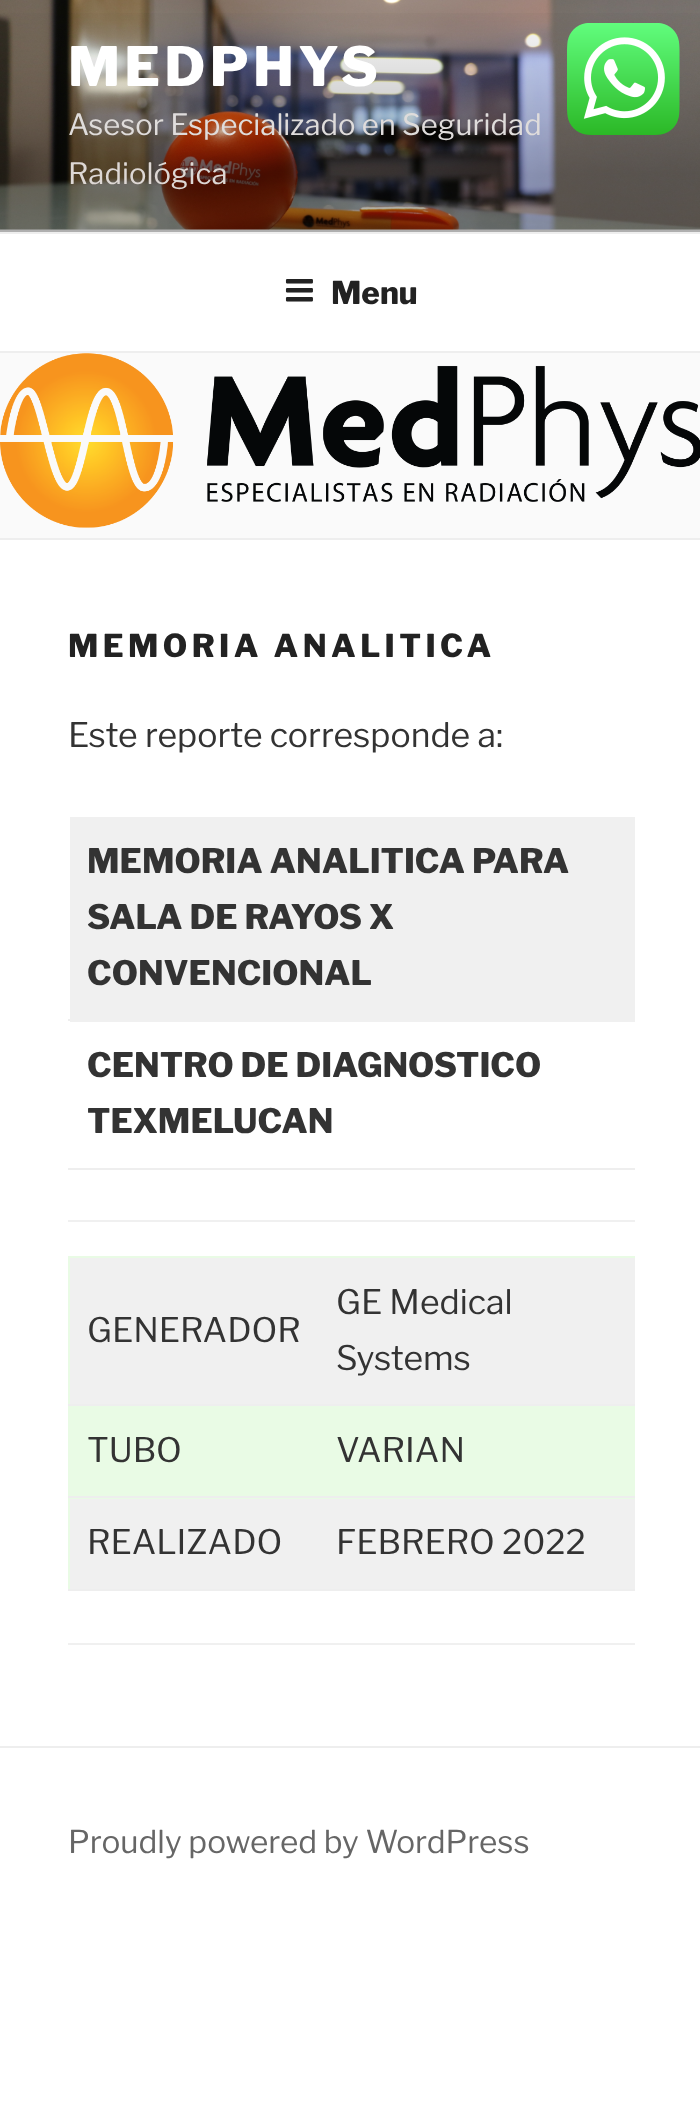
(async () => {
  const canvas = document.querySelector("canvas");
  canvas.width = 700;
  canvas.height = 2103;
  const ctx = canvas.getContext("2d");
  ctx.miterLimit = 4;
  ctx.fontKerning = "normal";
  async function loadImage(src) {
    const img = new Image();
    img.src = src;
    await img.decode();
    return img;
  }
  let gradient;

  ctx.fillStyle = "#ffffff";
  ctx.fillRect(0, 0, 700, 2103);
  ctx.fillStyle = "#fafafa";
  ctx.fillRect(0, 229, 700, 3);
  ctx.drawImage(await loadImage("img/1.png"), 0, 0, 700, 230);
  gradient = ctx.createLinearGradient(351, 0, 351, 232);
  gradient.addColorStop(0, "rgba(0, 0, 0, 0)");
  gradient.addColorStop(0.75, "rgba(0, 0, 0, 0.3)");
  gradient.addColorStop(1, "rgba(0, 0, 0, 0.3)");
  ctx.fillStyle = gradient;
  ctx.fillRect(0, 13, 700, 219);
  ctx.fillStyle = "#eeeeee";
  ctx.fillRect(0, 232, 700, 2);
  ctx.fillRect(0, 351, 700, 2);
  ctx.drawImage(await loadImage("img/2.png"), 285, 279, 28, 23);
  ctx.fillStyle = "#fafafa";
  ctx.fillRect(0, 353, 700, 185);
  ctx.fillStyle = "#eeeeee";
  ctx.fillRect(0, 538, 700, 2);
  ctx.drawImage(await loadImage("img/3.png"), 0, 353, 700, 175);
  for (const [x, y, w, h, color] of [
    [68, 1220, 567, 2, "#f0f0f0"],
    [70, 817, 565, 205, "#f0f0f0"],
    [68, 1019, 2, 2, "#eeeeee"],
    [68, 1168, 567, 2, "#eeeeee"],
    [68, 1643, 567, 2, "#f0f0f0"],
    [68, 1256, 567, 333, "#e9fbe5"],
    [70, 1258, 565, 146, "#f0f0f0"],
    [68, 1404, 567, 2, "#eeeeee"],
    [68, 1496, 567, 2, "#eeeeee"],
    [70, 1499, 565, 90, "#f0f0f0"],
    [68, 1589, 567, 2, "#eeeeee"],
    [0, 1746, 700, 2, "#eeeeee"],
  ]) {
    ctx.fillStyle = color;
    ctx.fillRect(x, y, w, h);
  }
  ctx.drawImage(await loadImage("img/4.png"), 567, 23, 113, 112);
  ctx.letterSpacing = "4.25px";
  ctx.font = "100 54px Libre Franklin";
  ctx.fillStyle = "#ffffff";
  ctx.fillText("MEDPHYS", 68, 86);
  ctx.letterSpacing = "0px";
  ctx.font = "100 29.25px 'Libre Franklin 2'";
  ctx.fillStyle = "#dfdcdb";
  ctx.fillText("Asesor Especializado en Seguridad", 68, 135);
  ctx.fillStyle = "#ddd7d4";
  ctx.fillText("Radiológica", 68, 184);
  ctx.font = "100 31.5px Libre Franklin";
  ctx.fillStyle = "#222222";
  ctx.fillText("Menu", 331, 304);
  ctx.letterSpacing = "4.4px";
  ctx.fillText("MEMORIA ANALITICA", 68, 657);
  ctx.letterSpacing = "0px";
  ctx.font = "100 33.75px 'Libre Franklin 2'";
  ctx.fillStyle = "#333333";
  ctx.fillText("Este reporte corresponde a:", 68, 747);
  ctx.font = "100 33.75px Libre Franklin";
  for (const [text, x, y] of [
    ["MEMORIA ANALITICA PARA", 87, 873],
    ["SALA DE RAYOS X", 87, 929],
    ["CONVENCIONAL", 87, 985],
    ["CENTRO DE DIAGNOSTICO", 87, 1077],
    ["TEXMELUCAN", 87, 1133],
  ]) {
    ctx.fillText(text, x, y);
  }
  ctx.font = "100 33.75px 'Libre Franklin 2'";
  for (const [text, x, y] of [
    ["GENERADOR", 87, 1342],
    ["GE Medical", 336, 1314],
    ["Systems", 336, 1370],
    ["TUBO", 87, 1462],
    ["VARIAN", 336, 1462],
    ["REALIZADO", 87, 1554],
    ["FEBRERO 2022", 336, 1554],
  ]) {
    ctx.fillText(text, x, y);
  }
  ctx.font = "100 31.5px 'Libre Franklin 2'";
  ctx.fillStyle = "#666666";
  ctx.fillText("Proudly powered by WordPress", 68, 1853);
})();
